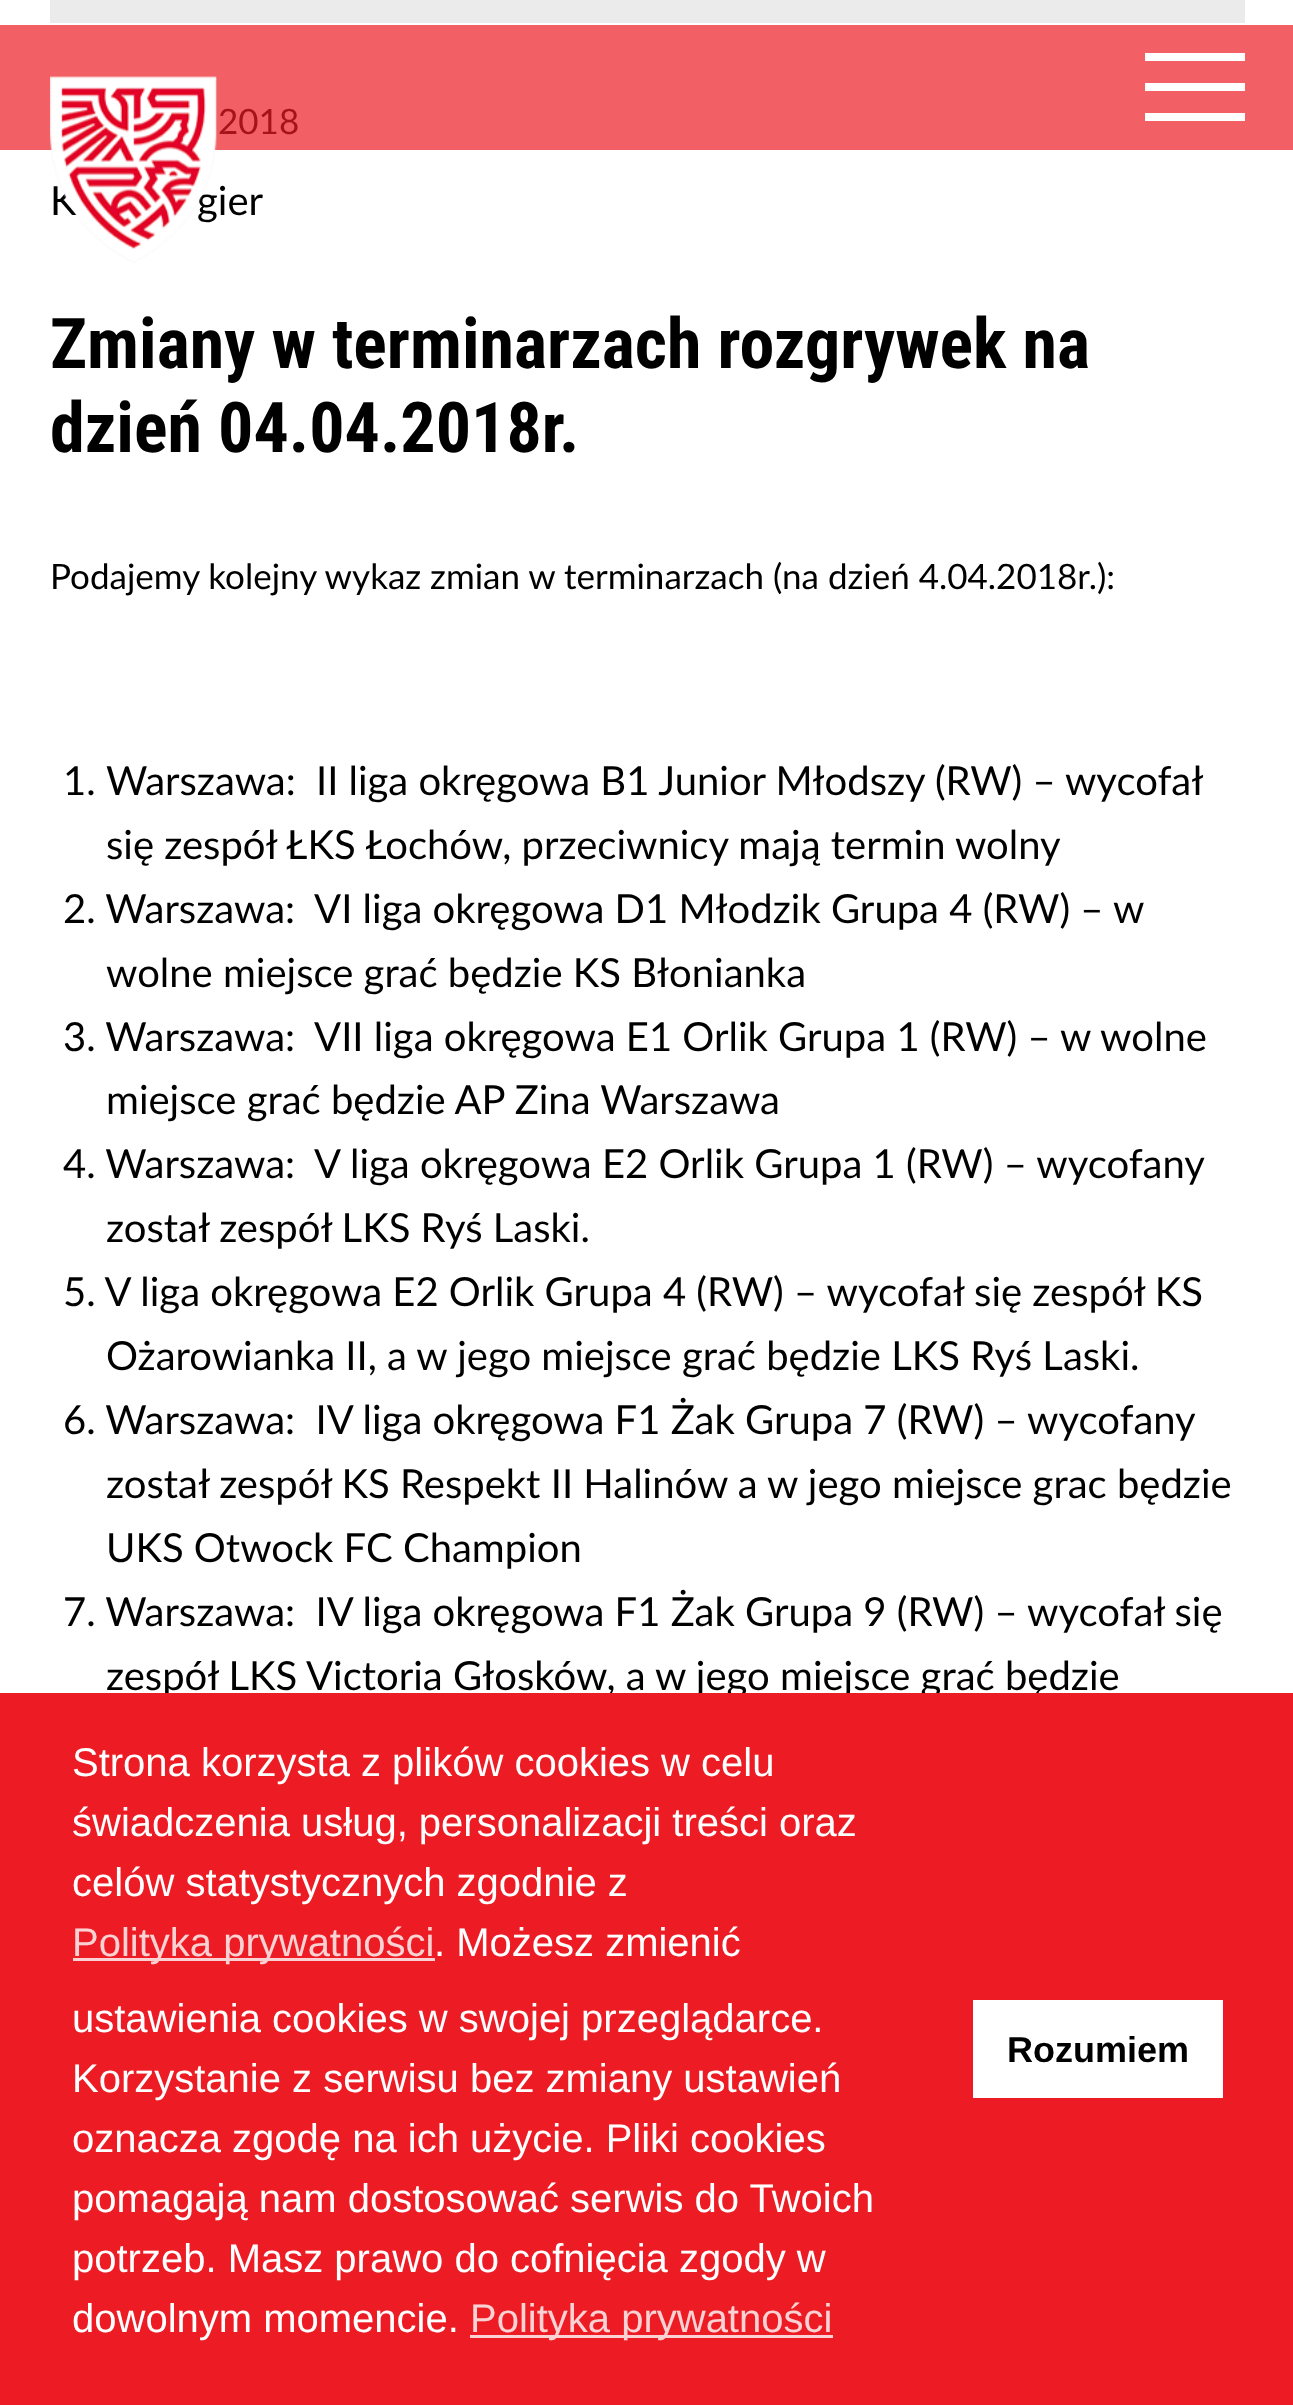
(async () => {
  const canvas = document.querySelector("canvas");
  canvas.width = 1293;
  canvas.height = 2405;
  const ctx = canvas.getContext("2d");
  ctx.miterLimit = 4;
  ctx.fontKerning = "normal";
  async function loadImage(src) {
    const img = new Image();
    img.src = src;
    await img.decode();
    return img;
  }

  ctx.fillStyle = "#ffffff";
  ctx.fillRect(0, 0, 1293, 2405);
  for (const [x, y, w, h, color] of [
    [0, 25, 1293, 125, "#f26066"],
    [1145, 53, 100, 8, "#ffffff"],
    [1145, 83, 100, 8, "#ffffff"],
    [1145, 113, 100, 8, "#ffffff"],
    [50, 0, 1195, 23, "#ebebeb"],
  ]) {
    ctx.fillStyle = color;
    ctx.fillRect(x, y, w, h);
  }
  ctx.font = "35px Lato";
  ctx.fillStyle = "#a61419";
  ctx.fillText("2018", 218, 134);
  ctx.font = "40px Lato";
  ctx.fillStyle = "#000000";
  ctx.fillText("K", 50, 215);
  ctx.fillText("gier", 197, 215);
  ctx.drawImage(await loadImage("img/1.png"), 50, 76, 167, 187);
  ctx.font = "bold 70px Roboto Condensed";
  ctx.fillText("Zmiany w terminarzach rozgrywek na", 50, 368);
  ctx.fillText("dzień 04.04.2018r.", 50, 452);
  ctx.font = "35px Lato";
  ctx.fillText("Podajemy kolejny wykaz zmian w terminarzach (na dzień 4.04.2018r.):", 50, 589);
  ctx.font = "40px Lato";
  ctx.fillText("1.", 63, 795);
  ctx.wordSpacing = "-0.1px";
  ctx.fillText("Warszawa:  II liga okręgowa B1 Junior Młodszy (RW) – wycofał", 106, 795);
  ctx.wordSpacing = "0px";
  for (const [text, x, y] of [
    ["się zespół ŁKS Łochów, przeciwnicy mają termin wolny", 106, 859],
    ["2. Warszawa:  VI liga okręgowa D1 Młodzik Grupa 4 (RW) – w", 63, 923],
    ["wolne miejsce grać będzie KS Błonianka", 106, 987],
    ["3. Warszawa:  VII liga okręgowa E1 Orlik Grupa 1 (RW) – w wolne", 63, 1051],
    ["miejsce grać będzie AP Zina Warszawa", 106, 1114],
    ["4. Warszawa:  V liga okręgowa E2 Orlik Grupa 1 (RW) – wycofany", 63, 1178],
    ["został zespół LKS Ryś Laski.", 106, 1242],
    ["5. V liga okręgowa E2 Orlik Grupa 4 (RW) – wycofał się zespół KS", 63, 1306],
    ["Ożarowianka II, a w jego miejsce grać będzie LKS Ryś Laski.", 106, 1370],
    ["6. Warszawa:  IV liga okręgowa F1 Żak Grupa 7 (RW) – wycofany", 63, 1434],
    ["został zespół KS Respekt II Halinów a w jego miejsce grac będzie", 106, 1498],
    ["UKS Otwock FC Champion", 106, 1562],
    ["7. Warszawa:  IV liga okręgowa F1 Żak Grupa 9 (RW) – wycofał się", 63, 1626],
    ["zespół LKS Victoria Głosków, a w jego miejsce grać będzie", 106, 1690],
  ]) {
    ctx.fillText(text, x, y);
  }
  ctx.fillStyle = "#ed1c24";
  ctx.fillRect(0, 1693, 1293, 712);
  ctx.font = "40px Liberation Sans";
  ctx.fillStyle = "#ffffff";
  for (const [text, x, y] of [
    ["Strona korzysta z plików cookies w celu", 72, 1776],
    ["świadczenia usług, personalizacji treści oraz", 72, 1836],
    ["celów statystycznych zgodnie z", 72, 1896],
  ]) {
    ctx.fillText(text, x, y);
  }
  ctx.fillStyle = "#fbd2d3";
  ctx.fillRect(73, 1958, 362, 3);
  ctx.fillText("Polityka prywatności", 72, 1956);
  ctx.fillStyle = "#ffffff";
  for (const [text, x, y] of [
    [". Możesz zmienić", 434, 1956],
    ["ustawienia cookies w swojej przeglądarce.", 72, 2032],
    ["Korzystanie z serwisu bez zmiany ustawień", 72, 2092],
    ["oznacza zgodę na ich użycie. Pliki cookies", 72, 2152],
    ["pomagają nam dostosować serwis do Twoich", 72, 2212],
    ["potrzeb. Masz prawo do cofnięcia zgody w", 72, 2272],
    ["dowolnym momencie.", 72, 2332],
  ]) {
    ctx.fillText(text, x, y);
  }
  ctx.fillStyle = "#fbd2d3";
  ctx.fillRect(470, 2335, 363, 3);
  ctx.fillText("Polityka prywatności", 470, 2332);
  ctx.fillStyle = "#ffffff";
  ctx.fillRect(973, 2000, 250, 98);
  ctx.font = "bold 36px Liberation Sans";
  ctx.fillStyle = "#000000";
  ctx.fillText("Rozumiem", 1007, 2062);
})();
